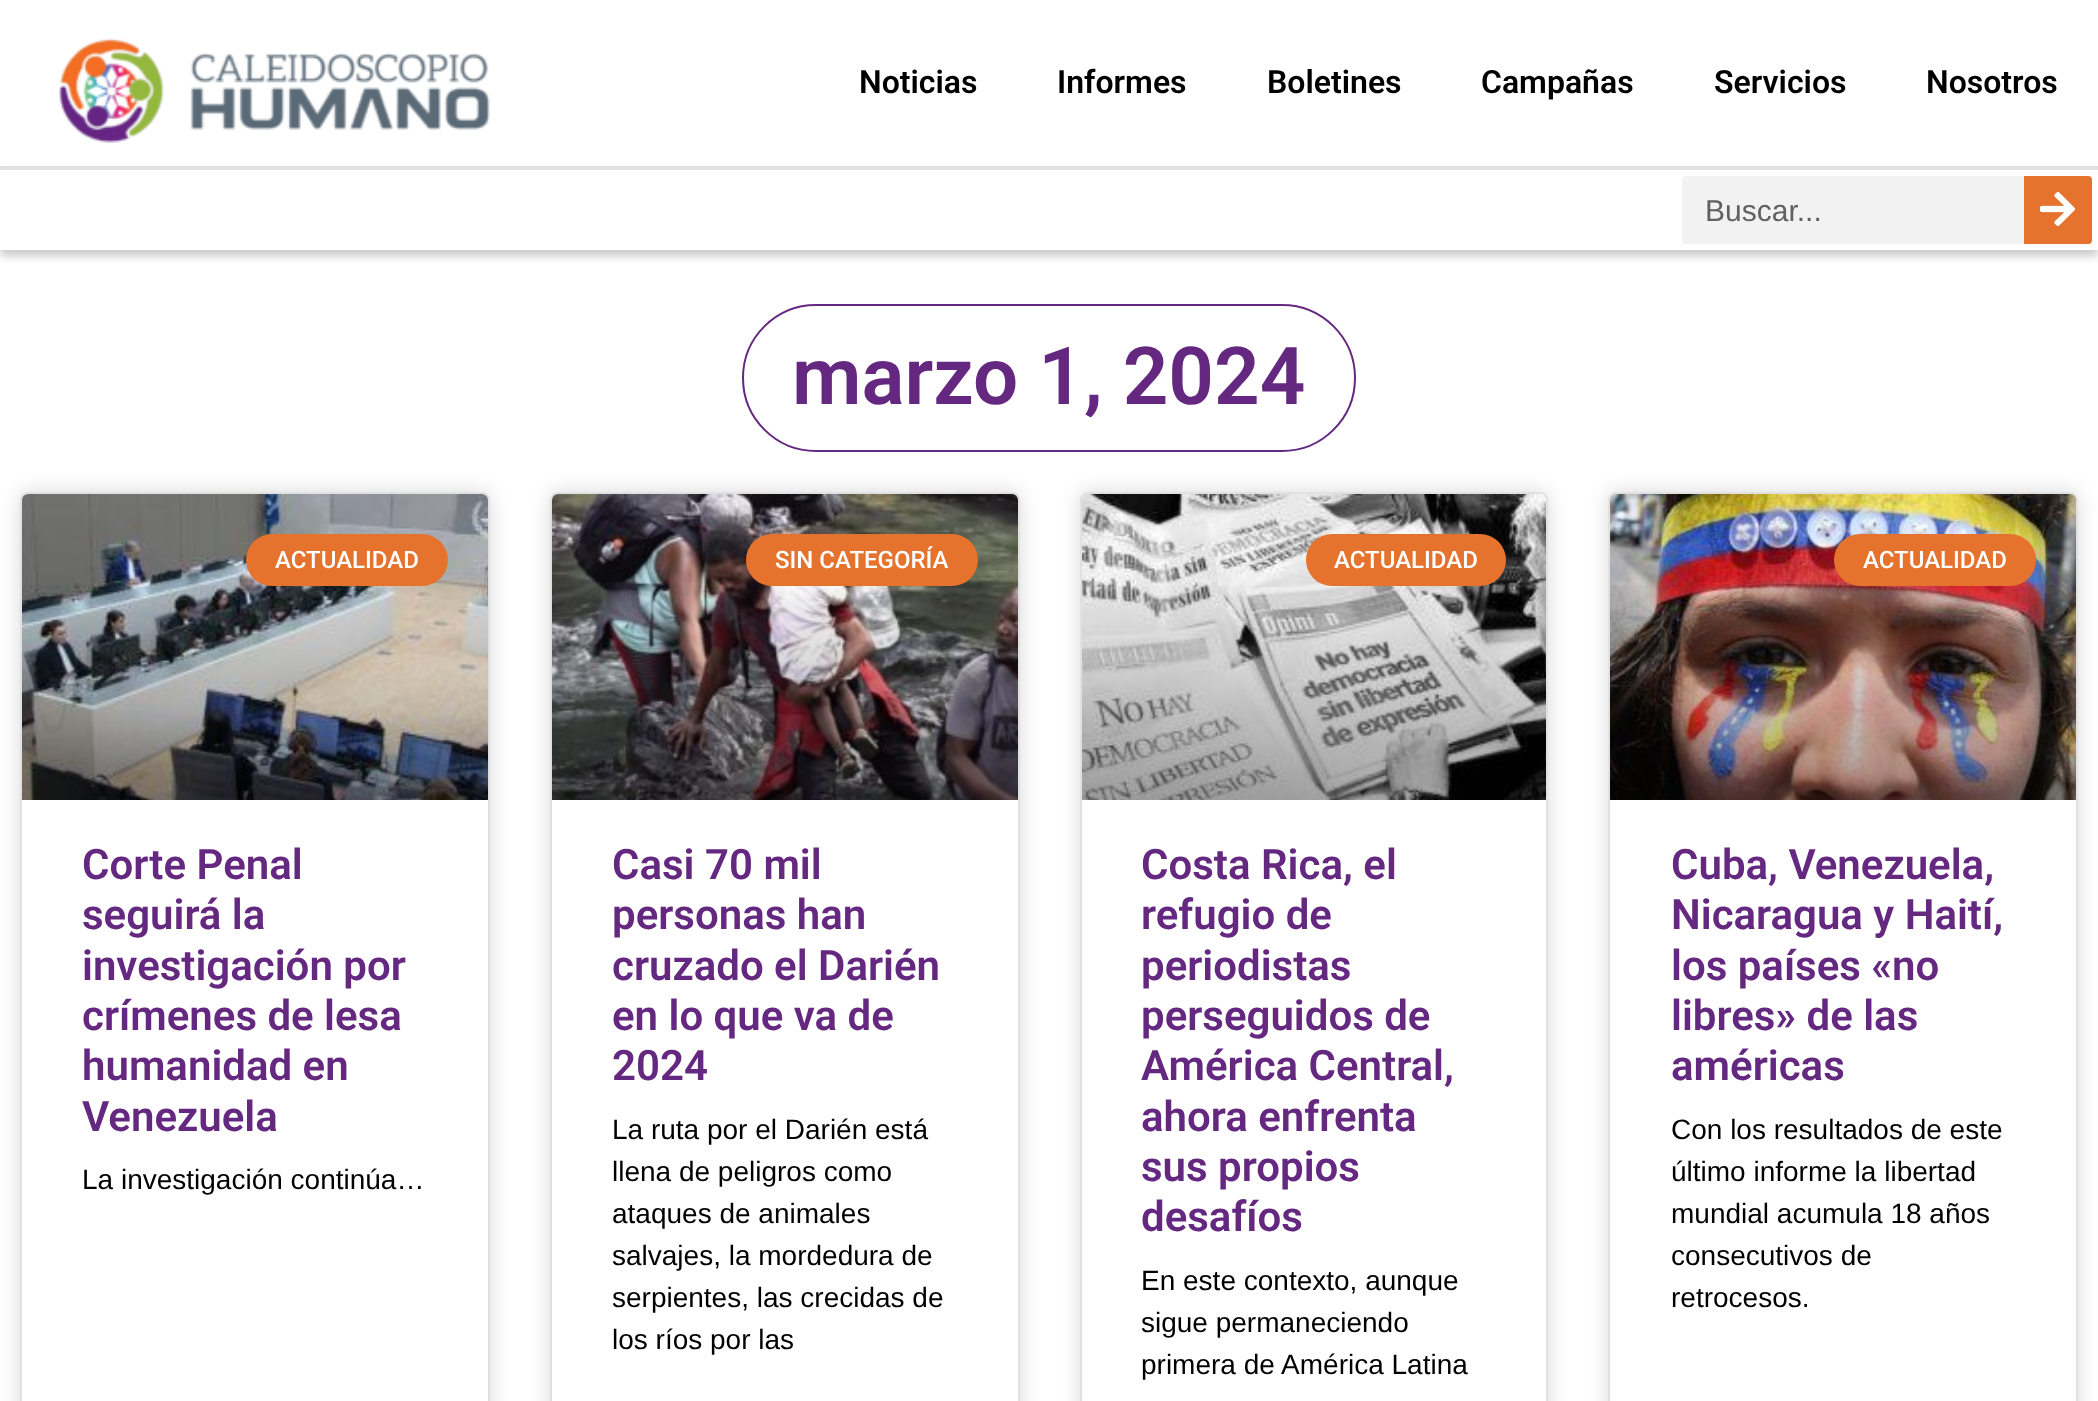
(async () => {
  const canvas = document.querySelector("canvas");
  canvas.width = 2098;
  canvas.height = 1401;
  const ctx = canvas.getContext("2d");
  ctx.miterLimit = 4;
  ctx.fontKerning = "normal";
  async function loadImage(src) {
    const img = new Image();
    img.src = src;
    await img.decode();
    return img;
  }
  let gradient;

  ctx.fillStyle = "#ffffff";
  ctx.fillRect(0, 0, 2098, 1401);
  ctx.drawImage(await loadImage("img/1.png"), 58, 38, 432, 105);
  ctx.fillStyle = "rgba(0, 0, 0, 0.21)";
  ctx.filter = "blur(4px)";
  ctx.beginPath();
  ctx.rect(0, 172, 2098, 84);
  ctx.fill();
  ctx.filter = "none";
  ctx.fillStyle = "#ffffff";
  ctx.fillRect(0, 170, 2098, 80);
  ctx.fillStyle = "#e1e1e1";
  ctx.fillRect(0, 166, 2098, 4);
  ctx.fillStyle = "#f2f2f2";
  ctx.beginPath();
  ctx.roundRect(1682, 176, 410, 68, 4);
  ctx.fill();
  ctx.fillStyle = "#e5732e";
  ctx.beginPath();
  ctx.roundRect(2024, 176, 68, 68, [0, 4, 4, 0]);
  ctx.fill();
  ctx.drawImage(await loadImage("img/2.png"), 2040, 192, 35, 34);
  ctx.beginPath();
  ctx.roundRect(743, 305, 612, 146, 73);
  ctx.strokeStyle = "#652881";
  ctx.lineWidth = 2;
  ctx.stroke();
  ctx.fillStyle = "rgba(0, 0, 0, 0.15)";
  ctx.filter = "blur(10px)";
  ctx.beginPath();
  ctx.roundRect(20, 492, 470, 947, 8);
  ctx.fill();
  ctx.filter = "none";
  ctx.fillStyle = "#ffffff";
  ctx.beginPath();
  ctx.roundRect(21, 493, 468, 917, 7);
  ctx.fill();
  ctx.strokeStyle = "#e1e1e1";
  ctx.stroke();
  ctx.drawImage(await loadImage("img/3.png"), 22, 494, 466, 306);
  gradient = ctx.createLinearGradient(255, 800, 255, 494);
  gradient.addColorStop(0, "rgba(0, 0, 0, 0.35)");
  gradient.addColorStop(0.75, "rgba(0, 0, 0, 0)");
  ctx.fillStyle = gradient;
  ctx.fillRect(22, 585, 466, 215);
  ctx.fillStyle = "#e5732e";
  ctx.beginPath();
  ctx.roundRect(246, 534, 202, 52, 26);
  ctx.fill();
  ctx.fillStyle = "rgba(0, 0, 0, 0.15)";
  ctx.filter = "blur(10px)";
  ctx.beginPath();
  ctx.roundRect(550, 492, 470, 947, 8);
  ctx.fill();
  ctx.filter = "none";
  ctx.fillStyle = "#ffffff";
  ctx.beginPath();
  ctx.roundRect(551, 493, 468, 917, 7);
  ctx.fill();
  ctx.stroke();
  ctx.drawImage(await loadImage("img/4.png"), 552, 494, 466, 306);
  gradient = ctx.createLinearGradient(785, 800, 785, 494);
  gradient.addColorStop(0, "rgba(0, 0, 0, 0.35)");
  gradient.addColorStop(0.75, "rgba(0, 0, 0, 0)");
  ctx.fillStyle = gradient;
  ctx.fillRect(552, 585, 466, 215);
  ctx.fillStyle = "#e5732e";
  ctx.beginPath();
  ctx.roundRect(746, 534, 232, 52, 26);
  ctx.fill();
  ctx.fillStyle = "rgba(0, 0, 0, 0.15)";
  ctx.filter = "blur(10px)";
  ctx.beginPath();
  ctx.roundRect(1080, 492, 468, 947, 8);
  ctx.fill();
  ctx.filter = "none";
  ctx.fillStyle = "#ffffff";
  ctx.beginPath();
  ctx.roundRect(1081, 493, 466, 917, 7);
  ctx.fill();
  ctx.stroke();
  ctx.drawImage(await loadImage("img/5.png"), 1082, 494, 464, 306);
  gradient = ctx.createLinearGradient(1314, 800, 1314, 494);
  gradient.addColorStop(0, "rgba(0, 0, 0, 0.35)");
  gradient.addColorStop(0.75, "rgba(0, 0, 0, 0)");
  ctx.fillStyle = gradient;
  ctx.fillRect(1082, 585, 464, 215);
  ctx.fillStyle = "#e5732e";
  ctx.beginPath();
  ctx.roundRect(1306, 534, 200, 52, 26);
  ctx.fill();
  ctx.fillStyle = "rgba(0, 0, 0, 0.15)";
  ctx.filter = "blur(10px)";
  ctx.beginPath();
  ctx.roundRect(1608, 492, 470, 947, 8);
  ctx.fill();
  ctx.filter = "none";
  ctx.fillStyle = "#ffffff";
  ctx.beginPath();
  ctx.roundRect(1609, 493, 468, 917, 7);
  ctx.fill();
  ctx.stroke();
  ctx.drawImage(await loadImage("img/6.png"), 1610, 494, 466, 306);
  gradient = ctx.createLinearGradient(1843, 800, 1843, 494);
  gradient.addColorStop(0, "rgba(0, 0, 0, 0.35)");
  gradient.addColorStop(0.75, "rgba(0, 0, 0, 0)");
  ctx.fillStyle = gradient;
  ctx.fillRect(1610, 585, 466, 215);
  ctx.fillStyle = "#e5732e";
  ctx.beginPath();
  ctx.roundRect(1834, 534, 202, 52, 26);
  ctx.fill();
  ctx.font = "600 32px Roboto";
  ctx.fillStyle = "#000000";
  for (const [text, x, y] of [
    ["Noticias", 859, 93],
    ["Informes", 1057, 93],
    ["Boletines", 1267, 93],
    ["Campañas", 1481, 93],
    ["Servicios", 1714, 93],
    ["Nosotros", 1926, 93],
  ]) {
    ctx.fillText(text, x, y);
  }
  ctx.font = "30px Liberation Sans";
  ctx.fillStyle = "#616161";
  ctx.fillText("Buscar...", 1705, 221);
  ctx.font = "600 80px Roboto";
  ctx.fillStyle = "#652881";
  ctx.fillText("marzo 1, 2024", 792, 404);
  ctx.font = "500 24px Roboto";
  ctx.fillStyle = "#ffffff";
  ctx.fillText("ACTUALIDAD", 275, 568);
  ctx.font = "600 42px Roboto";
  ctx.fillStyle = "#652881";
  for (const [text, x, y] of [
    ["Corte Penal", 82, 879],
    ["seguirá la", 82, 929],
    ["investigación por", 82, 980],
    ["crímenes de lesa", 82, 1030],
    ["humanidad en", 82, 1080],
    ["Venezuela", 82, 1131],
  ]) {
    ctx.fillText(text, x, y);
  }
  ctx.font = "28px Liberation Sans";
  ctx.fillStyle = "#000000";
  ctx.fillText("La investigación continúa…", 82, 1189);
  ctx.font = "500 24px Roboto";
  ctx.fillStyle = "#ffffff";
  ctx.fillText("SIN CATEGORÍA", 775, 568);
  ctx.font = "600 42px Roboto";
  ctx.fillStyle = "#652881";
  for (const [text, x, y] of [
    ["Casi 70 mil", 612, 879],
    ["personas han", 612, 929],
    ["cruzado el Darién", 612, 980],
    ["en lo que va de", 612, 1030],
    ["2024", 612, 1080],
  ]) {
    ctx.fillText(text, x, y);
  }
  ctx.font = "28px Liberation Sans";
  ctx.fillStyle = "#000000";
  for (const [text, x, y] of [
    ["La ruta por el Darién está", 612, 1139],
    ["llena de peligros como", 612, 1181],
    ["ataques de animales", 612, 1223],
    ["salvajes, la mordedura de", 612, 1265],
    ["serpientes, las crecidas de", 612, 1307],
    ["los ríos por las", 612, 1349],
  ]) {
    ctx.fillText(text, x, y);
  }
  ctx.font = "500 24px Roboto";
  ctx.fillStyle = "#ffffff";
  ctx.fillText("ACTUALIDAD", 1334, 568);
  ctx.font = "600 42px Roboto";
  ctx.fillStyle = "#652881";
  for (const [text, x, y] of [
    ["Costa Rica, el", 1141, 879],
    ["refugio de", 1141, 929],
    ["periodistas", 1141, 980],
    ["perseguidos de", 1141, 1030],
    ["América Central,", 1141, 1080],
    ["ahora enfrenta", 1141, 1131],
    ["sus propios", 1141, 1181],
    ["desafíos", 1141, 1231],
  ]) {
    ctx.fillText(text, x, y);
  }
  ctx.font = "28px Liberation Sans";
  ctx.fillStyle = "#000000";
  for (const [text, x, y] of [
    ["En este contexto, aunque", 1141, 1290],
    ["sigue permaneciendo", 1141, 1332],
    ["primera de América Latina", 1141, 1374],
  ]) {
    ctx.fillText(text, x, y);
  }
  ctx.font = "500 24px Roboto";
  ctx.fillStyle = "#ffffff";
  ctx.fillText("ACTUALIDAD", 1863, 568);
  ctx.font = "600 42px Roboto";
  ctx.fillStyle = "#652881";
  for (const [text, x, y] of [
    ["Cuba, Venezuela,", 1671, 879],
    ["Nicaragua y Haití,", 1671, 929],
    ["los países «no", 1671, 980],
    ["libres» de las", 1671, 1030],
    ["américas", 1671, 1080],
  ]) {
    ctx.fillText(text, x, y);
  }
  ctx.font = "28px Liberation Sans";
  ctx.fillStyle = "#000000";
  for (const [text, x, y] of [
    ["Con los resultados de este", 1671, 1139],
    ["último informe la libertad", 1671, 1181],
    ["mundial acumula 18 años", 1671, 1223],
    ["consecutivos de", 1671, 1265],
    ["retrocesos.", 1671, 1307],
  ]) {
    ctx.fillText(text, x, y);
  }
})();
